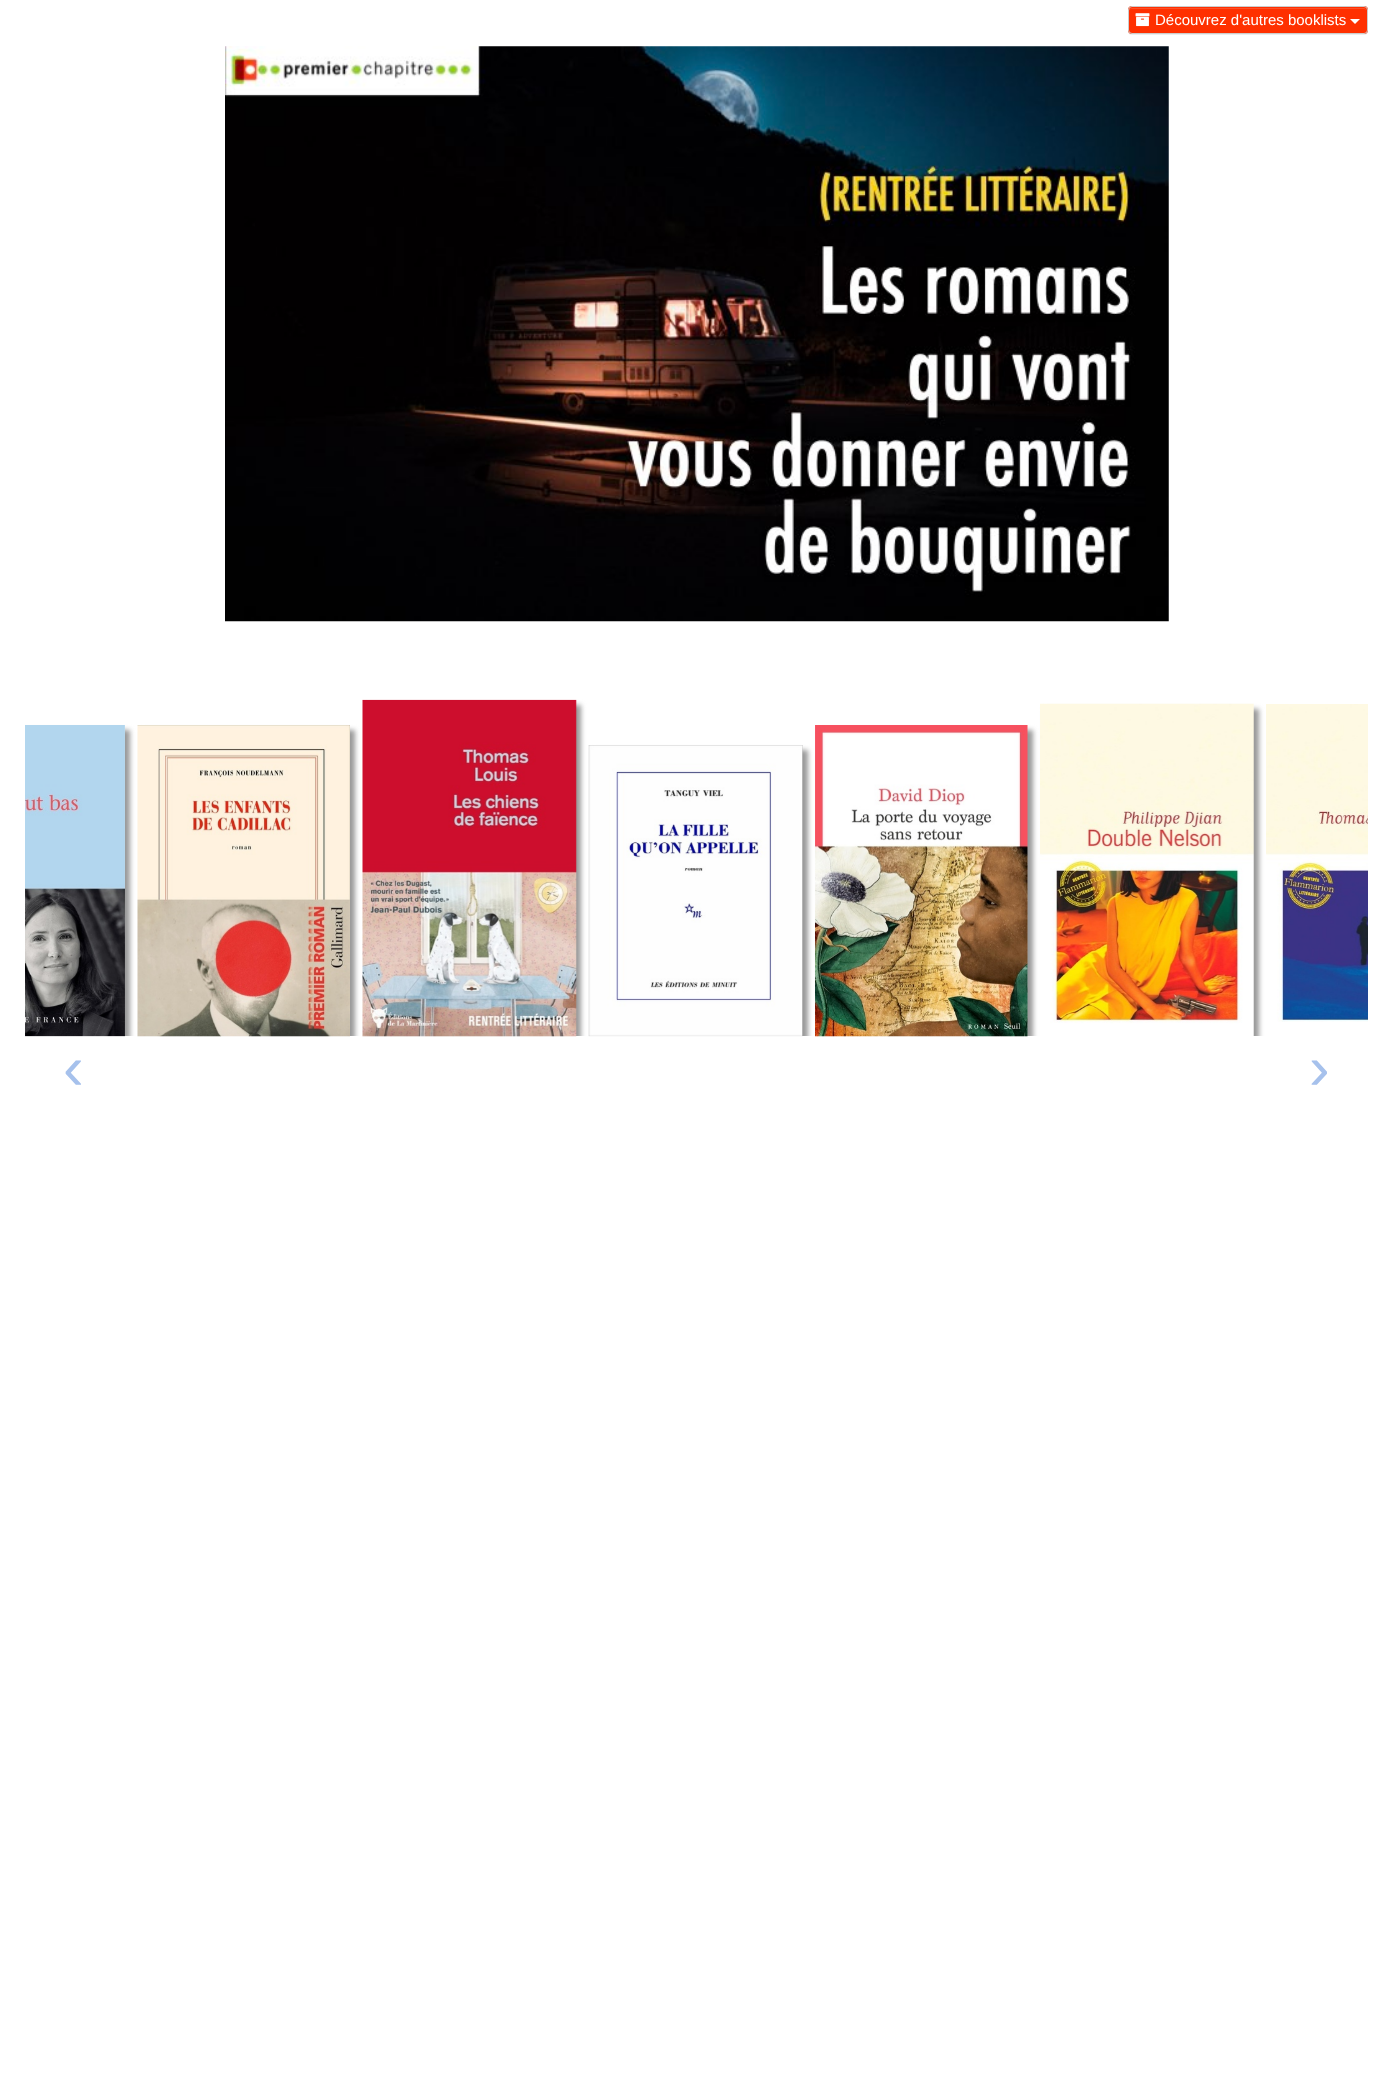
(async () => {
  const canvas = document.querySelector("canvas");
  canvas.width = 1392;
  canvas.height = 2084;
  const ctx = canvas.getContext("2d");
  ctx.miterLimit = 4;
  ctx.fontKerning = "normal";
  async function loadImage(src) {
    const img = new Image();
    img.src = src;
    await img.decode();
    return img;
  }
  let path;

  ctx.fillStyle = "#ffffff";
  ctx.fillRect(0, 0, 1392, 2084);
  ctx.fillStyle = "rgba(0, 0, 0, 0.07)";
  ctx.filter = "blur(0.5px)";
  ctx.beginPath();
  ctx.roundRect(1128, 8, 240, 27, 4);
  ctx.fill();
  ctx.filter = "none";
  ctx.fillStyle = "#ff3000";
  ctx.beginPath();
  ctx.roundRect(1128, 6, 240, 28, 4);
  ctx.fill();
  ctx.fillStyle = "#ff4f26";
  path = new Path2D("M1131 9H1364C1365 9 1366 10 1366 11C1366 9 1365 8 1364 8H1132L1129 9V11C1129 10 1130 9 1131 9Z");
  ctx.fill(path);
  ctx.beginPath();
  ctx.roundRect(1128.5, 6.5, 239, 27, 3.5);
  ctx.strokeStyle = "#cccccc";
  ctx.stroke();
  ctx.drawImage(await loadImage("img/1.png"), 1135, 13, 15, 14);
  ctx.fillStyle = "#ffffff";
  path = new Path2D("M1350 19H1360L1355 24Z");
  ctx.fill(path);
  ctx.drawImage(await loadImage("img/2.png"), 225, 46, 944, 576);
  ctx.save();
  ctx.beginPath();
  ctx.rect(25, 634, 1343, 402);
  ctx.clip();
  ctx.fillStyle = "#999999";
  ctx.filter = "blur(2.5px)";
  ctx.beginPath();
  ctx.rect(-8, 730, 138, 311);
  ctx.fill();
  ctx.filter = "none";
  ctx.restore();
  ctx.drawImage(await loadImage("img/3.png"), 25, 725, 100, 312);
  ctx.save();
  ctx.beginPath();
  ctx.rect(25, 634, 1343, 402);
  ctx.clip();
  ctx.fillStyle = "#999999";
  ctx.filter = "blur(2.5px)";
  ctx.beginPath();
  ctx.rect(143, 730, 212, 311);
  ctx.fill();
  ctx.filter = "none";
  ctx.restore();
  ctx.drawImage(await loadImage("img/4.png"), 137, 725, 213, 312);
  ctx.save();
  ctx.beginPath();
  ctx.rect(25, 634, 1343, 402);
  ctx.clip();
  ctx.fillStyle = "#999999";
  ctx.filter = "blur(2.5px)";
  ctx.beginPath();
  ctx.rect(368, 705, 213, 336);
  ctx.fill();
  ctx.filter = "none";
  ctx.restore();
  ctx.drawImage(await loadImage("img/5.png"), 362, 699, 215, 338);
  ctx.save();
  ctx.beginPath();
  ctx.rect(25, 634, 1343, 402);
  ctx.clip();
  ctx.fillStyle = "#999999";
  ctx.filter = "blur(2.5px)";
  ctx.beginPath();
  ctx.rect(594, 750, 214, 291);
  ctx.fill();
  ctx.filter = "none";
  ctx.restore();
  ctx.drawImage(await loadImage("img/6.png"), 588, 745, 215, 292);
  ctx.save();
  ctx.beginPath();
  ctx.rect(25, 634, 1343, 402);
  ctx.clip();
  ctx.fillStyle = "#999999";
  ctx.filter = "blur(2.5px)";
  ctx.beginPath();
  ctx.rect(820, 730, 213, 311);
  ctx.fill();
  ctx.filter = "none";
  ctx.restore();
  ctx.drawImage(await loadImage("img/7.png"), 815, 725, 213, 312);
  ctx.save();
  ctx.beginPath();
  ctx.rect(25, 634, 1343, 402);
  ctx.clip();
  ctx.fillStyle = "#999999";
  ctx.filter = "blur(2.5px)";
  ctx.beginPath();
  ctx.rect(1045, 709, 214, 332);
  ctx.fill();
  ctx.filter = "none";
  ctx.restore();
  ctx.drawImage(await loadImage("img/8.png"), 1040, 703, 214, 333);
  ctx.drawImage(await loadImage("img/9.png"), 1266, 704, 102, 318);
  ctx.font = "15px Liberation Sans";
  ctx.fillText("Découvrez d'autres booklists", 1155, 25);
  ctx.font = "62px Liberation Sans";
  ctx.fillStyle = "#a6c1ec";
  ctx.fillText("‹", 63, 1089);
  ctx.fillText("›", 1309, 1089);
})();
